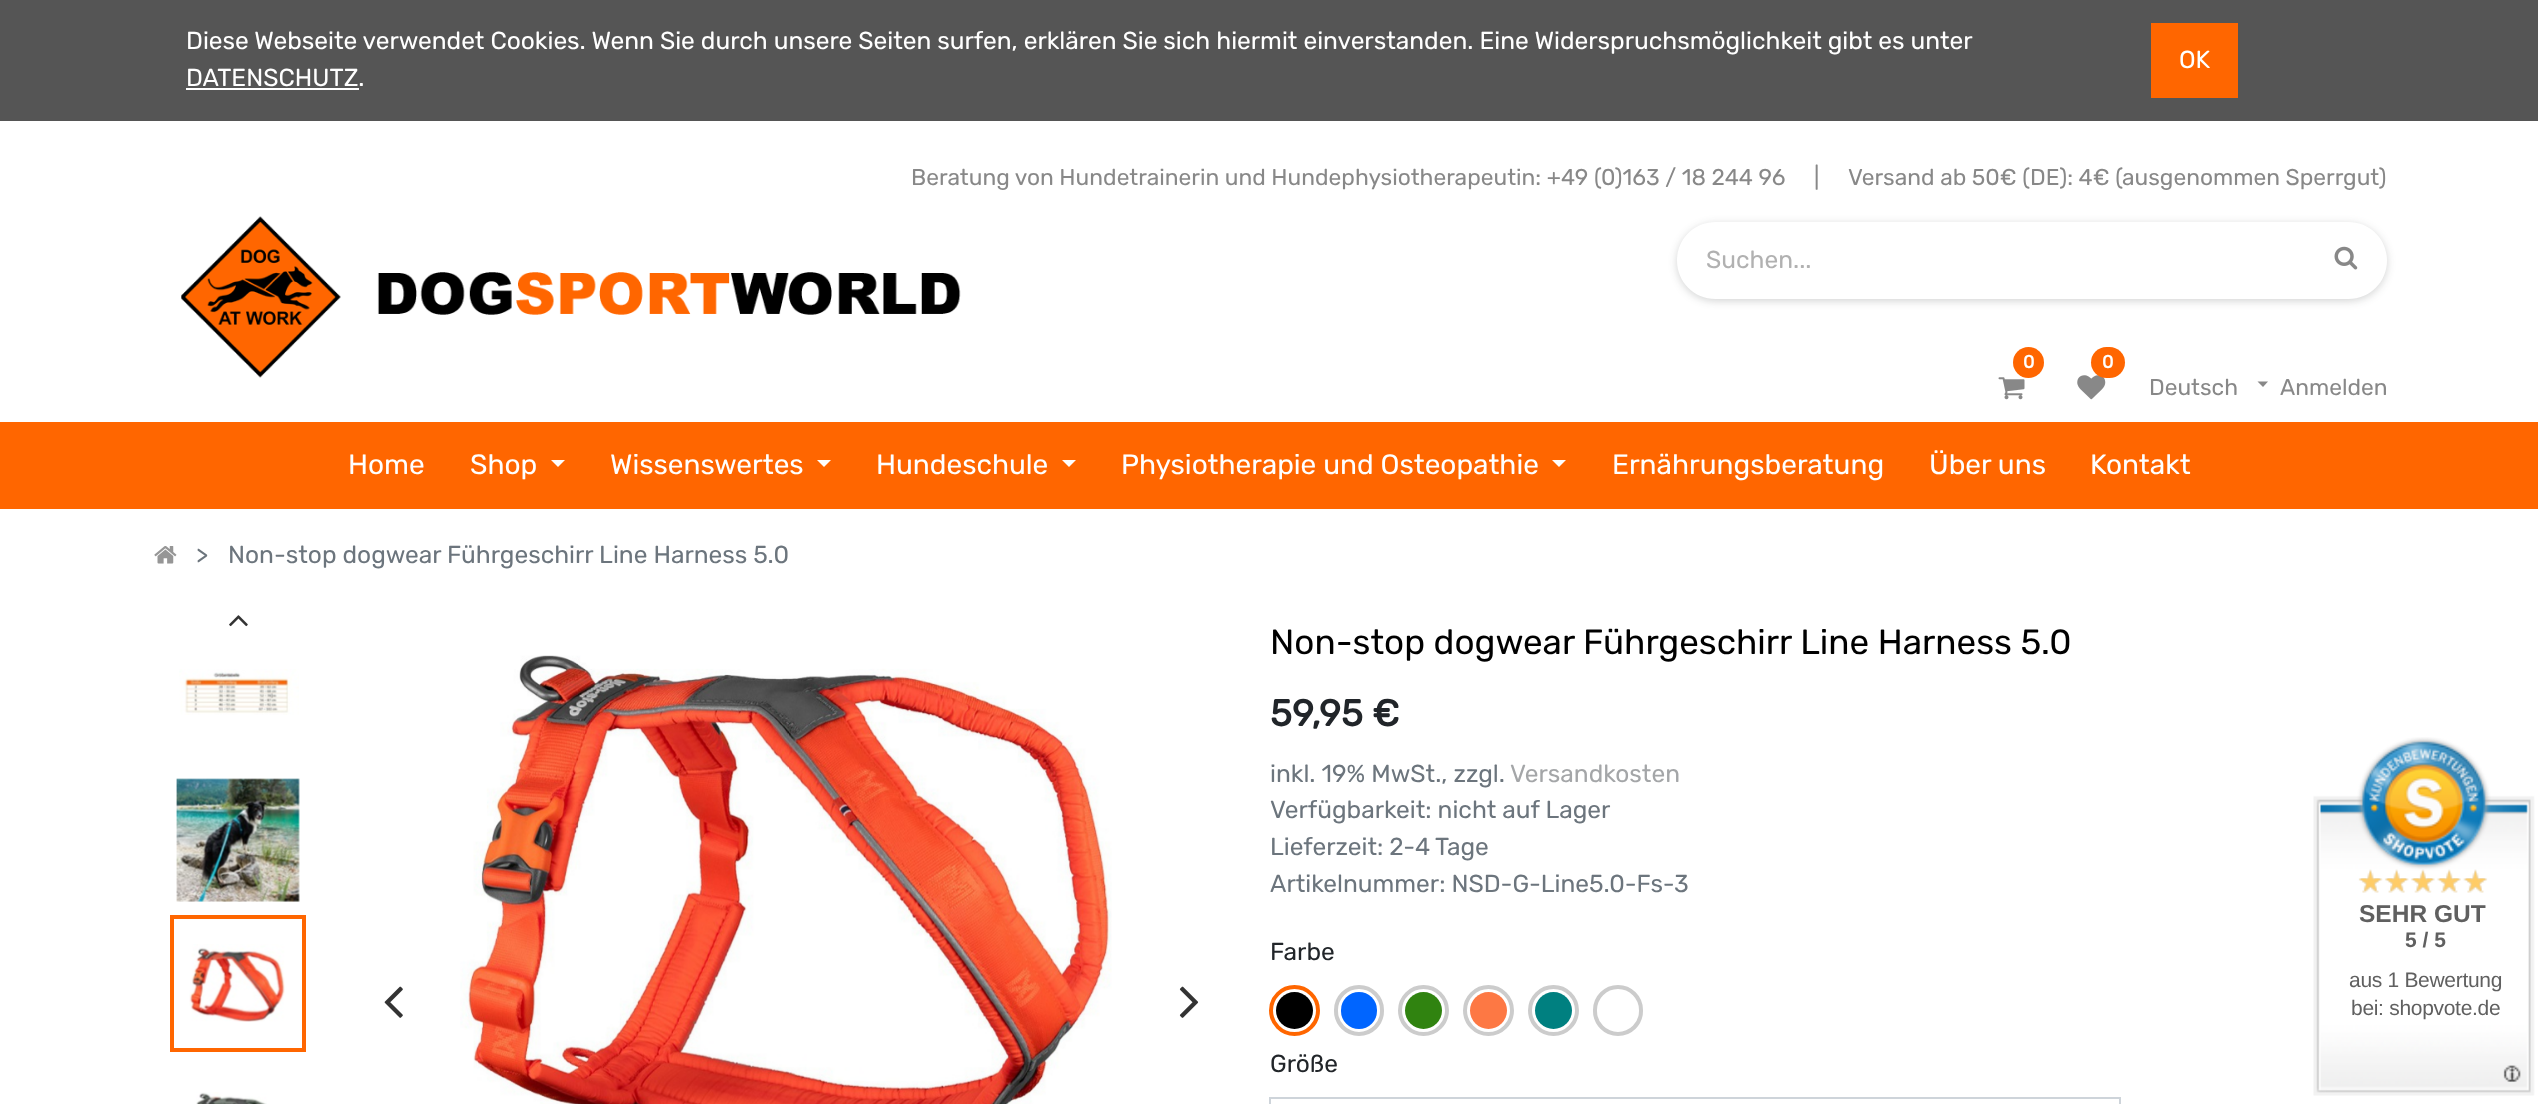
<svg xmlns="http://www.w3.org/2000/svg" width="2538" height="1104" viewBox="0 0 2538 1104">
  <style>
    .t1 { font: 300 24.5px Rubik; fill: #fff; }
    .t2 { font: 300 22.75px Rubik; fill: #888; }
    .t3 { font: 300 24.5px Rubik; fill: #b1b1b1; }
    .t4 { font: bold 18px Rubik; fill: #fff; }
    .t5 { font: 300 28px Rubik; fill: #fff; }
    .t6 { font: 300 24.5px Rubik; fill: #6c757d; }
    .t7 { font: 300 35px Rubik; fill: #000; }
    .t8 { font: bold 37px Rubik; fill: #212529; }
    .t9 { font: 300 24.5px Rubik; fill: #a4a6a8; }
    .t10 { font: 300 24.5px Rubik; fill: #212529; }
    .t11 { font: bold 24.5px Liberation Sans; fill: #606060; }
    .t12 { font: bold 21px Liberation Sans; fill: #606060; }
    .t13 { font: 21px Liberation Sans; letter-spacing: -0.3px; fill: #606060; }
  </style>
  <defs>
    <clipPath id="clip1"><path d="M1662 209H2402V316H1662ZM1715.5 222H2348.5C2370 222 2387 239 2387 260.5C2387 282 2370 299 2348.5 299H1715.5C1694 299 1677 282 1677 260.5C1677 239 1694 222 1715.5 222Z" clip-rule="evenodd"/></clipPath>
  </defs>
  <rect width="100%" height="100%" fill="#fff"/>
  <rect x="0" y="0" width="2538" height="121" fill="#555"/>
  <text x="186" y="49" class="t1">Diese Webseite verwendet Cookies. Wenn Sie durch unsere Seiten surfen, erklären Sie sich hiermit einverstanden. Eine Widerspruchsmöglichkeit gibt es unter</text>
  <text x="186" y="86" class="t1">DATENSCHUTZ.</text>
  <rect x="186" y="88" width="173" height="2" fill="#fff"/>
  <rect x="2151" y="23" width="87" height="75" fill="#f60"/>
  <text x="2179" y="68" class="t1">OK</text>
  <text x="911" y="185" class="t2">Beratung von Hundetrainerin und Hundephysiotherapeutin: +49 (0)163 / 18 244 96</text>
  <text x="1814" y="185" class="t2">|</text>
  <text x="1848" y="185" class="t2">Versand ab 50€ (DE): 4€ (ausgenommen Sperrgut)</text>
  <image x="181" y="216" width="780" height="162" href="images/1.png"/>
  <g clip-path="url(#clip1)">
    <rect x="1677" y="224" width="710" height="77" rx="38.5" fill="#20212433" filter="blur(4.5px)"/>
  </g>
  <text x="1706" y="268" class="t3">Suchen...</text>
  <image x="2334" y="246" width="24" height="24" href="images/2.png"/>
  <image x="1998" y="377" width="27" height="23" href="images/3.png"/>
  <circle cx="2028.5" cy="362.5" r="15.5" fill="#f60"/>
  <text x="2023" y="368" class="t4">0</text>
  <image x="2077" y="375" width="29" height="25" href="images/4.png"/>
  <rect x="2091" y="347" width="34" height="31" rx="15.5" fill="#f60"/>
  <text x="2102" y="368" class="t4">0</text>
  <text x="2149" y="395" class="t2">Deutsch</text>
  <path d="M2257.5 381.5H2268L2263 387Z" fill="#888"/>
  <text x="2280" y="395" class="t2">Anmelden</text>
  <rect x="0" y="422" width="2538" height="87" fill="#f60"/>
  <text x="348" y="474" class="t5">Home</text>
  <text x="470" y="474" class="t5">Shop</text>
  <path d="M551 460H565L558 467Z" fill="#fff"/>
  <text x="610" y="474" class="t5">Wissenswertes</text>
  <path d="M817 460H831L824 467Z" fill="#fff"/>
  <text x="876" y="474" class="t5">Hundeschule</text>
  <path d="M1062 460H1076L1069 467Z" fill="#fff"/>
  <text x="1121" y="474" class="t5">Physiotherapie und Osteopathie</text>
  <path d="M1552 460H1566L1559 467Z" fill="#fff"/>
  <text x="1612" y="474" class="t5">Ernährungsberatung</text>
  <text x="1929" y="474" class="t5">Über uns</text>
  <text x="2090" y="474" class="t5">Kontakt</text>
  <image x="154" y="546" width="23" height="18" href="images/5.png"/>
  <text x="196" y="563" class="t6">&gt;</text>
  <text x="228" y="563" class="t6">Non-stop dogwear Führgeschirr Line Harness 5.0</text>
  <image x="229" y="615" width="19" height="12" href="images/6.png"/>
  <image x="179" y="669" width="120" height="46" href="images/7.png"/>
  <image x="176" y="778" width="124" height="124" href="images/8.png"/>
  <rect x="172" y="917" width="132" height="133" fill="none" stroke="#f60" stroke-width="4"/>
  <image x="189" y="944" width="96" height="78" href="images/9.png"/>
  <image x="196" y="1092" width="71" height="12" href="images/10.png"/>
  <image x="460" y="655" width="652" height="449" href="images/11.png"/>
  <image x="384" y="986" width="19" height="32" href="images/12.png"/>
  <image x="1179" y="986" width="20" height="32" href="images/13.png"/>
  <text x="1270" y="654" class="t7">Non-stop dogwear Führgeschirr Line Harness 5.0</text>
  <text x="1270" y="726" class="t8">59,95 €</text>
  <text x="1270" y="782" class="t6">inkl. 19% MwSt., zzgl.</text>
  <text x="1510" y="782" class="t9">Versandkosten</text>
  <text x="1270" y="818" class="t6">Verfügbarkeit: nicht auf Lager</text>
  <text x="1270" y="855" class="t6">Lieferzeit: 2-4</text>
  <text x="1435" y="855" class="t6">Tage</text>
  <text x="1270" y="892" class="t6">Artikelnummer: NSD-G-Line5.0-Fs-3</text>
  <text x="1270" y="960" class="t10">Farbe</text>
  <circle cx="1294.5" cy="1010.5" r="23.5" fill="none" stroke="#f60" stroke-width="4"/>
  <circle cx="1294.5" cy="1010.5" r="18.5" fill="#000"/>
  <rect x="1336" y="987" width="46" height="47" rx="23" fill="none" stroke="#ccc" stroke-width="4"/>
  <rect x="1341" y="992" width="36" height="37" rx="18" fill="#0065ff"/>
  <circle cx="1423.5" cy="1010.5" r="23.5" fill="none" stroke="#ccc" stroke-width="4"/>
  <circle cx="1423.5" cy="1010.5" r="18.5" fill="#308310"/>
  <circle cx="1488.5" cy="1010.5" r="23.5" fill="none" stroke="#ccc" stroke-width="4"/>
  <circle cx="1488.5" cy="1010.5" r="18.5" fill="#fd7844"/>
  <circle cx="1553.5" cy="1010.5" r="23.5" fill="none" stroke="#ccc" stroke-width="4"/>
  <circle cx="1553.5" cy="1010.5" r="18.5" fill="#008080"/>
  <rect x="1595" y="987" width="46" height="47" rx="23" fill="none" stroke="#ccc" stroke-width="4"/>
  <text x="1270" y="1072" class="t10">Größe</text>
  <rect x="1270" y="1098" width="850" height="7" fill="none" stroke="#ced4da" stroke-width="2"/>
  <image x="2313" y="737" width="222" height="359" href="images/14.png"/>
  <image x="2359" y="869" width="128" height="24" href="images/15.png"/>
  <text x="2359" y="922" class="t11">SEHR GUT</text>
  <text x="2405" y="947" class="t12">5 / 5</text>
  <text x="2349" y="987" class="t13">aus 1 Bewertung</text>
  <text x="2351" y="1015" class="t13">bei: shopvote.de</text>
</svg>
